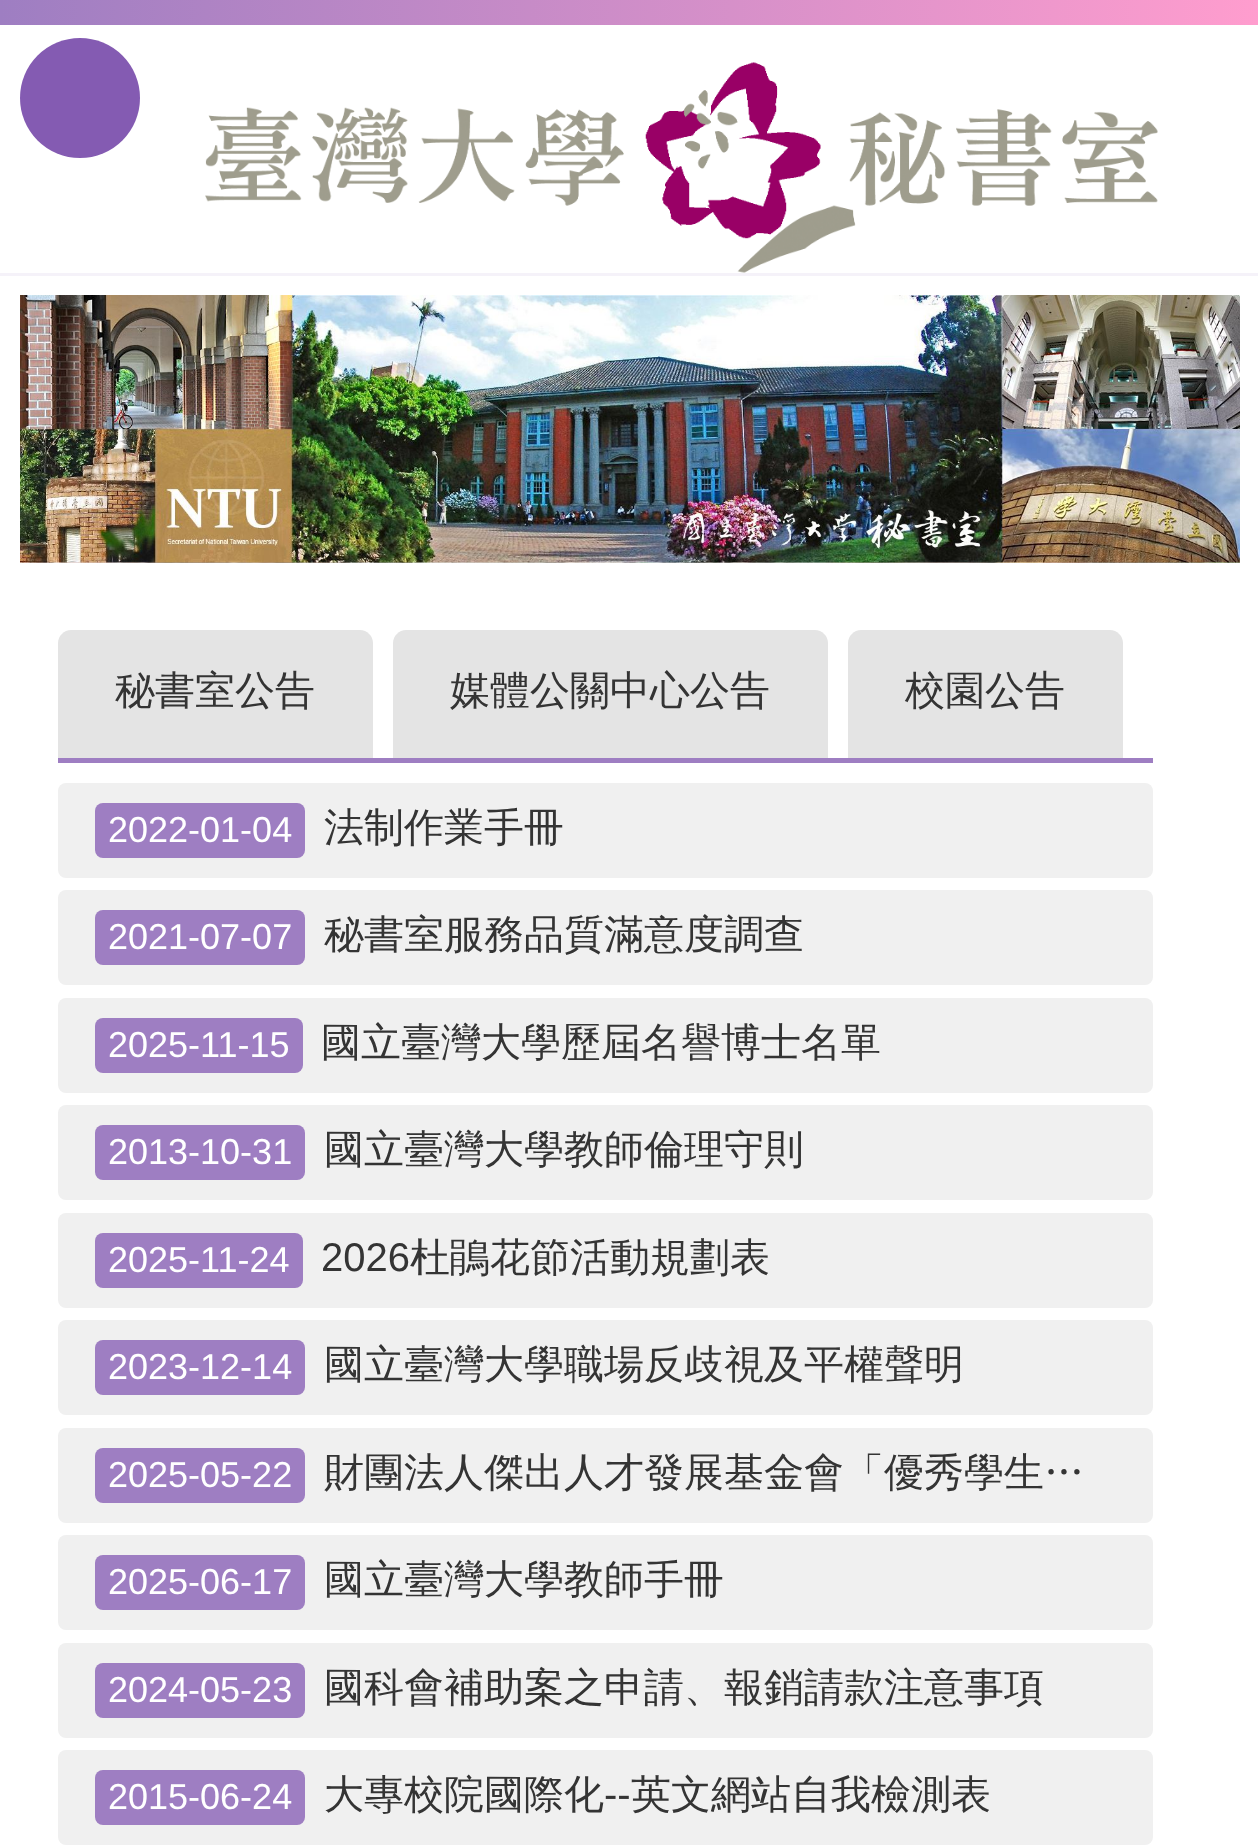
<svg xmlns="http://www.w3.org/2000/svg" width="1258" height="1848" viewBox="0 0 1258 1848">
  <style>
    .t1 { font: 500 40px WenQuanYi Zen Hei; fill: #343434; }
    .t2 { font: 36px Liberation Sans; fill: #fff; }
    .t3 { font: 40px Liberation Sans; fill: #343434; }
  </style>
  <defs>
    <linearGradient id="g1" gradientUnits="userSpaceOnUse" x1="0" y1="13" x2="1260" y2="12"><stop offset="0" stop-color="#9e7ec2"/><stop offset="1" stop-color="#ff9dce"/></linearGradient>
  </defs>
  <rect width="100%" height="100%" fill="#fff"/>
  <circle cx="80" cy="98" r="60" fill="#845bb2"/>
  <rect x="0" y="273" width="1258" height="3" fill="#f5f2f9"/>
  <rect x="0" y="0" width="1258" height="25" fill="url(#g1)"/>
  <image x="205" y="62" width="953" height="211" href="images/1.png"/>
  <image x="20" y="562" width="1220" height="1" href="images/2.png"/>
  <image x="20" y="295" width="1220" height="268" href="images/3.png"/>
  <rect x="58" y="758" width="1095" height="5" fill="#9e7ec2"/>
  <path d="M71 630H360C367 630 373 636 373 643V758H58V643C58 636 64 630 71 630Z" fill="#e4e4e4"/>
  <text x="115" y="704" class="t1">秘書室公告</text>
  <path d="M406 630H815C822 630 828 636 828 643V758H393V643C393 636 399 630 406 630Z" fill="#e4e4e4"/>
  <text x="450" y="704" class="t1">媒體公關中心公告</text>
  <path d="M861 630H1110C1117 630 1123 636 1123 643V758H848V643C848 636 854 630 861 630Z" fill="#e4e4e4"/>
  <text x="905" y="704" class="t1">校園公告</text>
  <rect x="58" y="783" width="1095" height="95" rx="8" fill="#f0f0f0"/>
  <rect x="95" y="803" width="210" height="55" rx="8" fill="#9e7ec2"/>
  <text x="108" y="842" class="t2">2022-01-04</text>
  <text x="324" y="841" class="t1">法制作業手冊</text>
  <rect x="58" y="890" width="1095" height="95" rx="8" fill="#f0f0f0"/>
  <rect x="95" y="910" width="210" height="55" rx="8" fill="#9e7ec2"/>
  <text x="108" y="949" class="t2">2021-07-07</text>
  <text x="324" y="948" class="t1">秘書室服務品質滿意度調查</text>
  <rect x="58" y="998" width="1095" height="95" rx="8" fill="#f0f0f0"/>
  <rect x="95" y="1018" width="208" height="55" rx="8" fill="#9e7ec2"/>
  <text x="108" y="1057" class="t2">2025-11-15</text>
  <text x="321" y="1056" class="t1">國立臺灣大學歷屆名譽博士名單</text>
  <rect x="58" y="1105" width="1095" height="95" rx="8" fill="#f0f0f0"/>
  <rect x="95" y="1125" width="210" height="55" rx="8" fill="#9e7ec2"/>
  <text x="108" y="1164" class="t2">2013-10-31</text>
  <text x="324" y="1163" class="t1">國立臺灣大學教師倫理守則</text>
  <rect x="58" y="1213" width="1095" height="95" rx="8" fill="#f0f0f0"/>
  <rect x="95" y="1233" width="208" height="55" rx="8" fill="#9e7ec2"/>
  <text x="108" y="1272" class="t2">2025-11-24</text>
  <text x="321" y="1271" class="t3">2026</text>
  <text x="410" y="1271" class="t1">杜鵑花節活動規劃表</text>
  <rect x="58" y="1320" width="1095" height="95" rx="8" fill="#f0f0f0"/>
  <rect x="95" y="1340" width="210" height="55" rx="8" fill="#9e7ec2"/>
  <text x="108" y="1379" class="t2">2023-12-14</text>
  <text x="324" y="1378" class="t1">國立臺灣大學職場反歧視及平權聲明</text>
  <rect x="58" y="1428" width="1095" height="95" rx="8" fill="#f0f0f0"/>
  <rect x="95" y="1448" width="210" height="55" rx="8" fill="#9e7ec2"/>
  <text x="108" y="1487" class="t2">2025-05-22</text>
  <text x="324" y="1486" class="t1">財團法人傑出人才發展基金會「優秀學生…</text>
  <rect x="58" y="1535" width="1095" height="95" rx="8" fill="#f0f0f0"/>
  <rect x="95" y="1555" width="210" height="55" rx="8" fill="#9e7ec2"/>
  <text x="108" y="1594" class="t2">2025-06-17</text>
  <text x="324" y="1593" class="t1">國立臺灣大學教師手冊</text>
  <rect x="58" y="1643" width="1095" height="95" rx="8" fill="#f0f0f0"/>
  <rect x="95" y="1663" width="210" height="55" rx="8" fill="#9e7ec2"/>
  <text x="108" y="1702" class="t2">2024-05-23</text>
  <text x="324" y="1701" class="t1">國科會補助案之申請、報銷請款注意事項</text>
  <rect x="58" y="1750" width="1095" height="95" rx="8" fill="#f0f0f0"/>
  <rect x="95" y="1770" width="210" height="55" rx="8" fill="#9e7ec2"/>
  <text x="108" y="1809" class="t2">2015-06-24</text>
  <text x="324" y="1808" class="t1">大專校院國際化</text>
  <text x="604" y="1808" class="t3">--</text>
  <text x="631" y="1808" class="t1">英文網站自我檢測表</text>
</svg>
